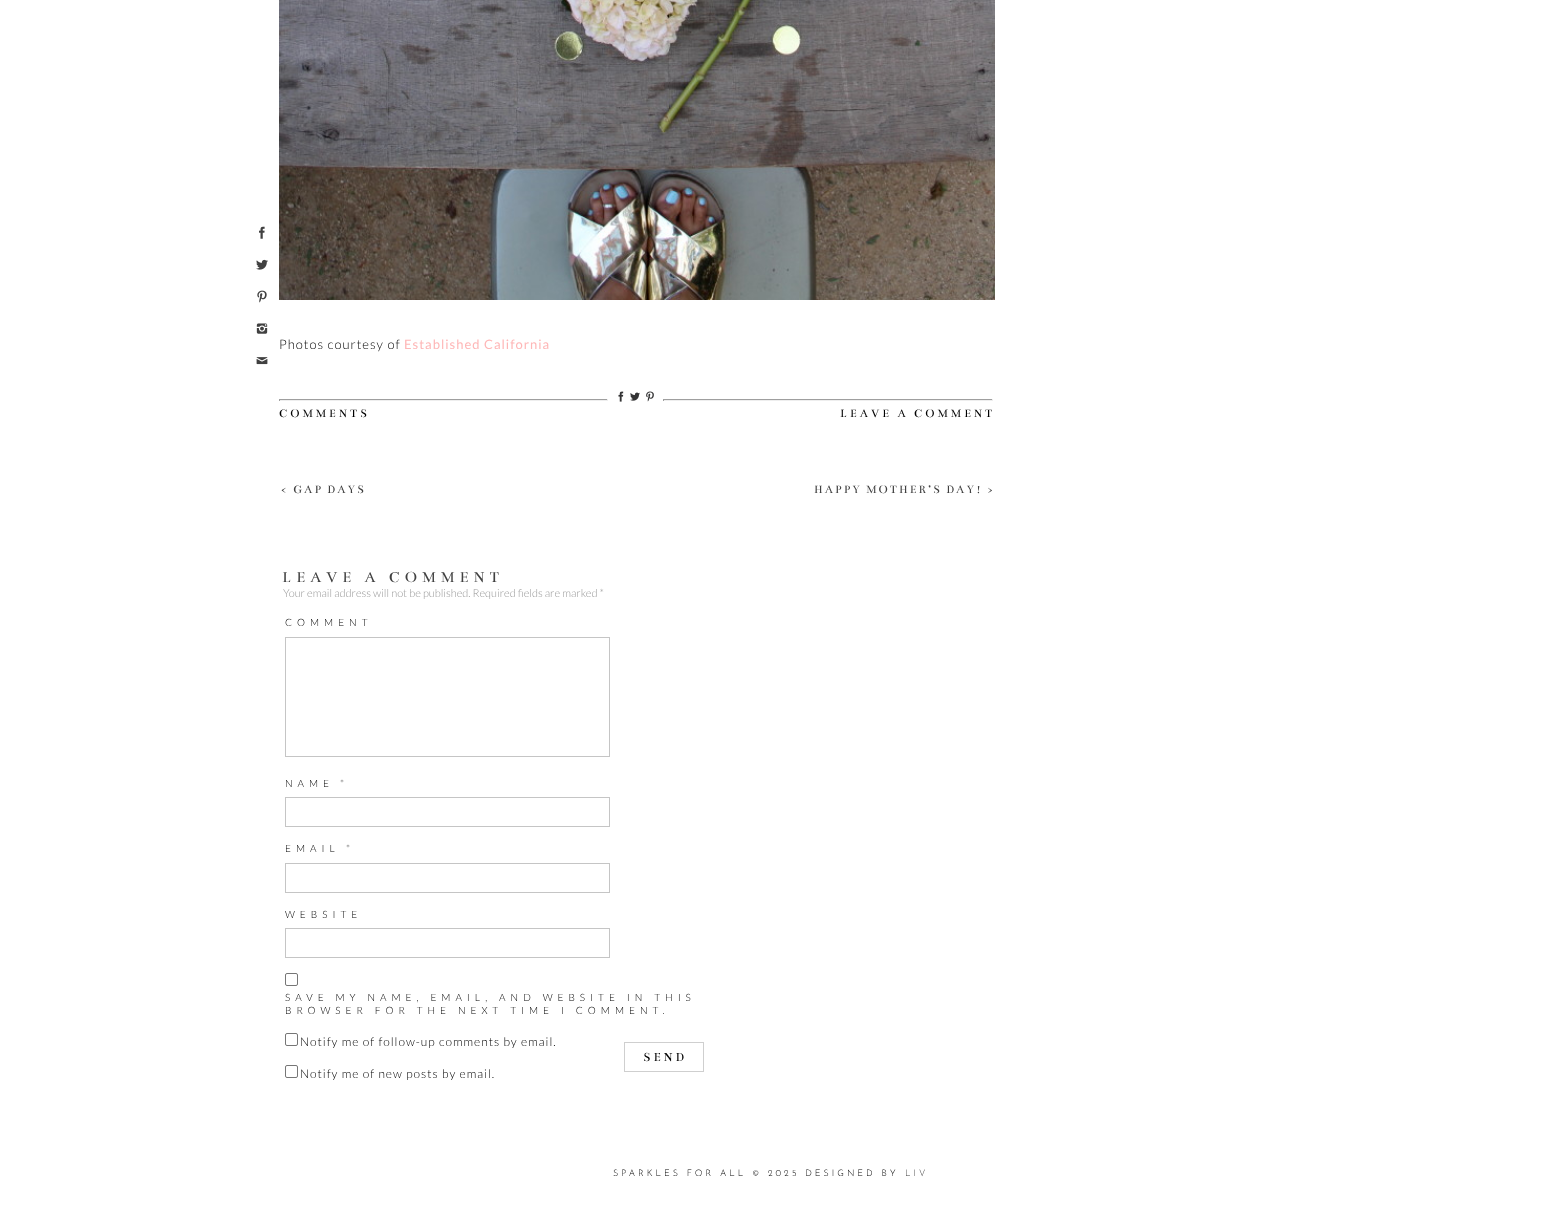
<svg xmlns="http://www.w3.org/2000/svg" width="1541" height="1222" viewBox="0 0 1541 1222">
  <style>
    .t1 { font: 300 13px Lato; letter-spacing: 1px; fill: #000; }
    .t2 { font: 13px Lato; letter-spacing: 1px; fill: #feb7b7; }
    .t3 { font: 12px Bentham; letter-spacing: 3px; fill: #000; }
    .t4 { font: 12px Bentham; letter-spacing: 2px; fill: #404040; }
    .t5 { font: 16px Bentham; letter-spacing: 5px; fill: #404040; }
    .t6 { font: 300 11px Lato; fill: #979797; }
    .t7 { font: 300 10px Lato; letter-spacing: 5px; fill: #000; }
    .t8 { font: 300 10px Lato; letter-spacing: 5px; fill: #404040; }
    .t9 { font: 300 12px Lato; letter-spacing: 1px; fill: #000; }
    .t10 { font: 13px Bentham; letter-spacing: 3px; fill: #000; }
    .t11 { font: 300 9px Josefin Sans; letter-spacing: 3px; fill: #000; }
    .t12 { font: 300 9px Josefin Sans; letter-spacing: 3px; fill: #404040; }
  </style>
  <rect width="100%" height="100%" fill="#fff"/>
  <image x="259" y="226" width="6" height="13" href="images/1.png"/>
  <image x="256" y="259" width="12" height="11" href="images/2.png"/>
  <image x="257" y="290" width="10" height="13" href="images/3.png"/>
  <image x="256" y="323" width="12" height="11" href="images/4.png"/>
  <image x="256" y="357" width="12" height="8" href="images/5.png"/>
  <image x="279" y="0" width="716" height="300" href="images/6.png"/>
  <text x="279" y="349" class="t1">Photos courtesy of</text>
  <text x="404" y="349" class="t2">Established California</text>
  <rect x="279" y="399" width="329" height="1" fill="#9f9f9f"/>
  <rect x="607" y="399" width="1" height="2" fill="#eee"/>
  <rect x="279" y="400" width="329" height="1" fill="#eee"/>
  <rect x="279" y="399" width="1" height="2" fill="#9f9f9f"/>
  <image x="618" y="391" width="6" height="11" href="images/7.png"/>
  <image x="630" y="392" width="10" height="9" href="images/8.png"/>
  <image x="646" y="391" width="8" height="11" href="images/9.png"/>
  <rect x="663" y="399" width="330" height="1" fill="#9f9f9f"/>
  <rect x="992" y="399" width="1" height="2" fill="#eee"/>
  <rect x="663" y="400" width="330" height="1" fill="#eee"/>
  <rect x="663" y="399" width="1" height="2" fill="#9f9f9f"/>
  <text x="279" y="417" class="t3">COMMENTS</text>
  <text x="840" y="417" class="t3">LEAVE A COMMENT</text>
  <text x="281" y="493" class="t4">&lt; GAP DAYS</text>
  <text x="814" y="493" class="t4">HAPPY MOTHER’S DAY! &gt;</text>
  <text x="282" y="582" class="t5">LEAVE A COMMENT</text>
  <text x="283" y="597" class="t6">Your email address will not be published. Required fields are marked *</text>
  <text x="285" y="626" class="t7">COMMENT</text>
  <rect x="285.5" y="637.5" width="324" height="119" fill="none" stroke="#c5c5c5"/>
  <text x="285" y="787" class="t7">NAME</text>
  <text x="340" y="787" class="t8">*</text>
  <rect x="285.5" y="797.5" width="324" height="29" fill="none" stroke="#c5c5c5"/>
  <text x="285" y="852" class="t7">EMAIL</text>
  <text x="346" y="852" class="t8">*</text>
  <rect x="285.5" y="863.5" width="324" height="29" fill="none" stroke="#c5c5c5"/>
  <text x="285" y="918" class="t7">WEBSITE</text>
  <rect x="285.5" y="928.5" width="324" height="29" fill="none" stroke="#c5c5c5"/>
  <rect x="285.5" y="973.5" width="12" height="12" rx="1.5" fill="none" stroke="#767676"/>
  <text x="285" y="1001" class="t7">SAVE MY NAME, EMAIL, AND WEBSITE IN THIS</text>
  <text x="285" y="1014" class="t7">BROWSER FOR THE NEXT TIME I COMMENT.</text>
  <rect x="285.5" y="1033.5" width="12" height="12" rx="1.5" fill="none" stroke="#767676"/>
  <text x="300" y="1046" class="t9">Notify me of follow-up comments by email.</text>
  <rect x="624.5" y="1042.5" width="79" height="29" fill="none" stroke="#cfcfcf"/>
  <text x="643" y="1061" class="t10">SEND</text>
  <rect x="285.5" y="1065.5" width="12" height="12" rx="1.5" fill="none" stroke="#767676"/>
  <text x="300" y="1078" class="t9">Notify me of new posts by email.</text>
  <text x="613" y="1176" class="t11">SPARKLES FOR ALL © 2025 DESIGNED BY</text>
  <text x="905" y="1176" class="t12">LIV</text>
</svg>
